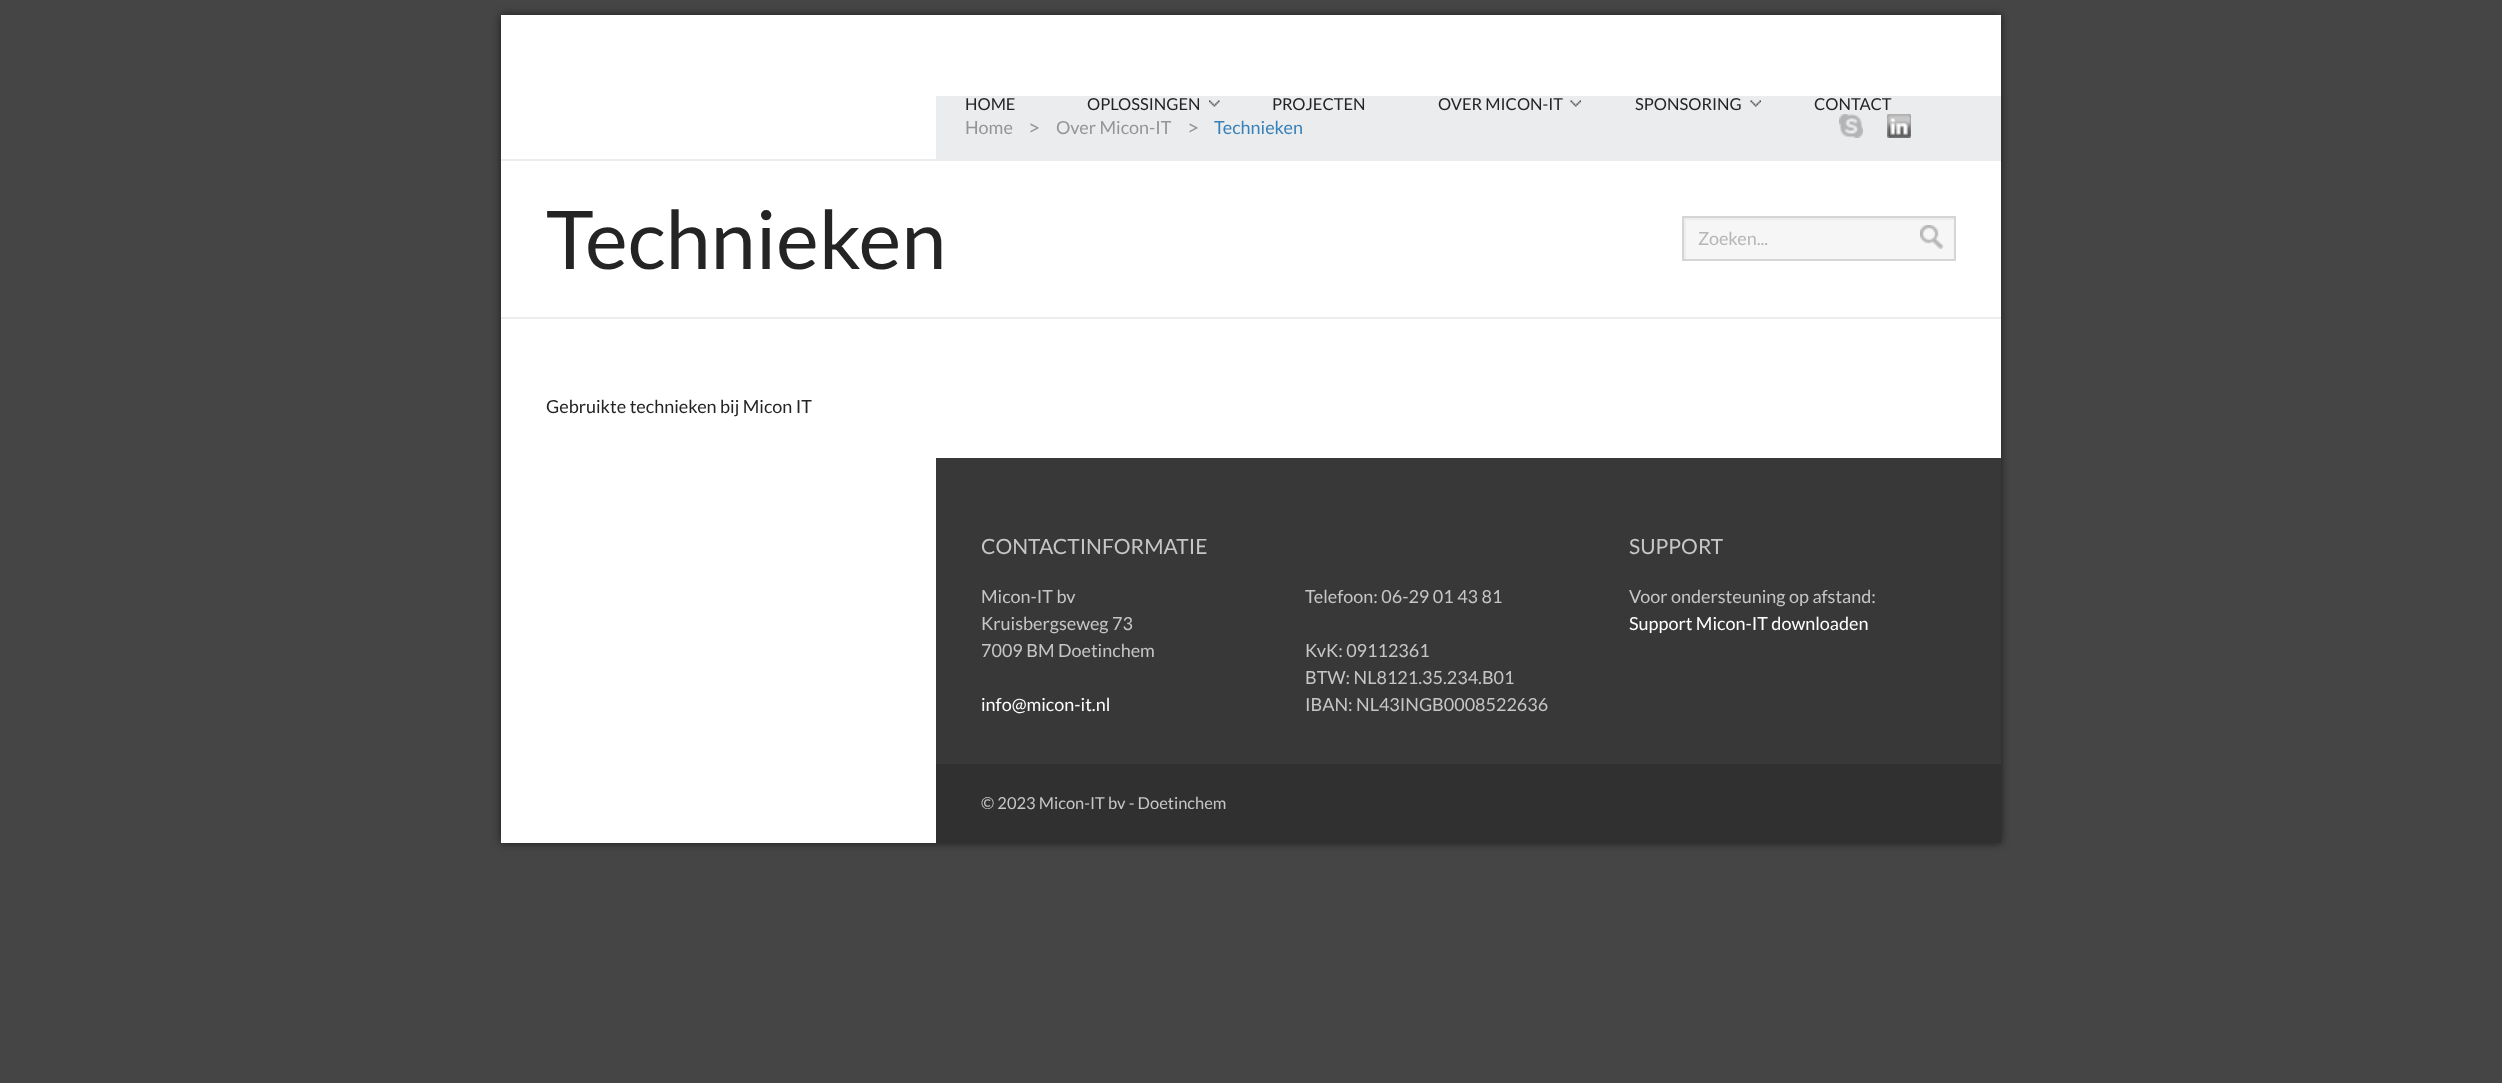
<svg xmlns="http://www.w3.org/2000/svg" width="2502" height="1083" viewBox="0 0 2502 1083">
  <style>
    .t1 { font: 16.5px Lato; fill: #242424; }
    .t2 { font: 18px Lato; fill: #959595; }
    .t3 { font: 21px Lato; fill: #959595; }
    .t4 { font: 18px Lato; fill: #3781b7; }
    .t5 { font: 81px Lato; fill: #242424; }
    .t6 { font: 18px Lato; fill: #b6b6b6; }
    .t7 { font: 18px Lato; fill: #242424; }
    .t8 { font: 21px Lato; fill: #c6c6c6; }
    .t9 { font: 18px Lato; fill: #c6c6c6; }
    .t10 { font: 18px Lato; fill: #fff; }
    .t11 { font: 16.5px Lato; fill: #c6c6c6; }
  </style>
  <defs>
    <clipPath id="clip1"><rect x="1683" y="218" width="272" height="42"/></clipPath>
  </defs>
  <rect width="100%" height="100%" fill="#454545"/>
  <rect x="501" y="15" width="1500" height="828" fill="#00000099" filter="blur(4px)"/>
  <rect x="501" y="15" width="1500" height="828" fill="#fff"/>
  <rect x="936" y="96" width="1065" height="63" fill="#eaecee"/>
  <text x="965" y="110" class="t1">HOME</text>
  <image x="1209" y="100" width="11" height="7" href="images/1.png"/>
  <text x="1087" y="110" class="t1">OPLOSSINGEN</text>
  <text x="1272" y="110" class="t1">PROJECTEN</text>
  <image x="1570" y="100" width="11" height="7" href="images/2.png"/>
  <text x="1438" y="110" class="t1">OVER MICON-IT</text>
  <image x="1750" y="100" width="11" height="7" href="images/2.png"/>
  <text x="1635" y="110" class="t1">SPONSORING</text>
  <text x="1814" y="110" class="t1">CONTACT</text>
  <text x="965" y="134" class="t2">Home</text>
  <text x="1028" y="135" class="t3">&gt;</text>
  <text x="1056" y="134" class="t2">Over Micon-IT</text>
  <text x="1187" y="135" class="t3">&gt;</text>
  <text x="1214" y="134" class="t4">Technieken</text>
  <image x="1839" y="114" width="24" height="24" href="images/3.png"/>
  <image x="1887" y="114" width="24" height="24" href="images/4.png"/>
  <rect x="501" y="159" width="1500" height="2" fill="#eaecee"/>
  <rect x="501" y="317" width="1500" height="2" fill="#eaecee"/>
  <text x="546" y="269" class="t5">Technieken</text>
  <rect x="1686" y="220" width="268" height="39" fill="#f6f6f6"/>
  <g clip-path="url(#clip1)">
    <path d="M1534 69H2103V408H1534ZM1686 220H1958V262H1686Z" fill="#ededed" fill-rule="evenodd"/>
  </g>
  <rect x="1683" y="217" width="272" height="43" fill="none" stroke="#d3d5d7" stroke-width="2"/>
  <text x="1698" y="245" class="t6">Zoeken...</text>
  <image x="1920" y="225" width="24" height="24" href="images/5.png"/>
  <text x="546" y="413" class="t7">Gebruikte technieken bij Micon IT</text>
  <rect x="936" y="458" width="1065" height="306" fill="#383838"/>
  <text x="981" y="554" class="t8">CONTACTINFORMATIE</text>
  <text x="981" y="603" class="t9">Micon-IT bv</text>
  <text x="981" y="630" class="t9">Kruisbergseweg 73</text>
  <text x="981" y="657" class="t9">7009 BM Doetinchem</text>
  <text x="981" y="711" class="t10">info@micon-it.nl</text>
  <text x="1305" y="603" class="t9">Telefoon: 06-29 01 43 81</text>
  <text x="1305" y="657" class="t9">KvK: 09112361</text>
  <text x="1305" y="684" class="t9">BTW: NL8121.35.234.B01</text>
  <text x="1305" y="711" class="t9">IBAN: NL43INGB0008522636</text>
  <text x="1629" y="554" class="t8">SUPPORT</text>
  <text x="1629" y="603" class="t9">Voor ondersteuning op afstand:</text>
  <text x="1629" y="630" class="t10">Support Micon-IT downloaden</text>
  <rect x="936" y="764" width="1065" height="79" fill="#303030"/>
  <text x="981" y="809" class="t11">© 2023 Micon-IT bv - Doetinchem</text>
</svg>
